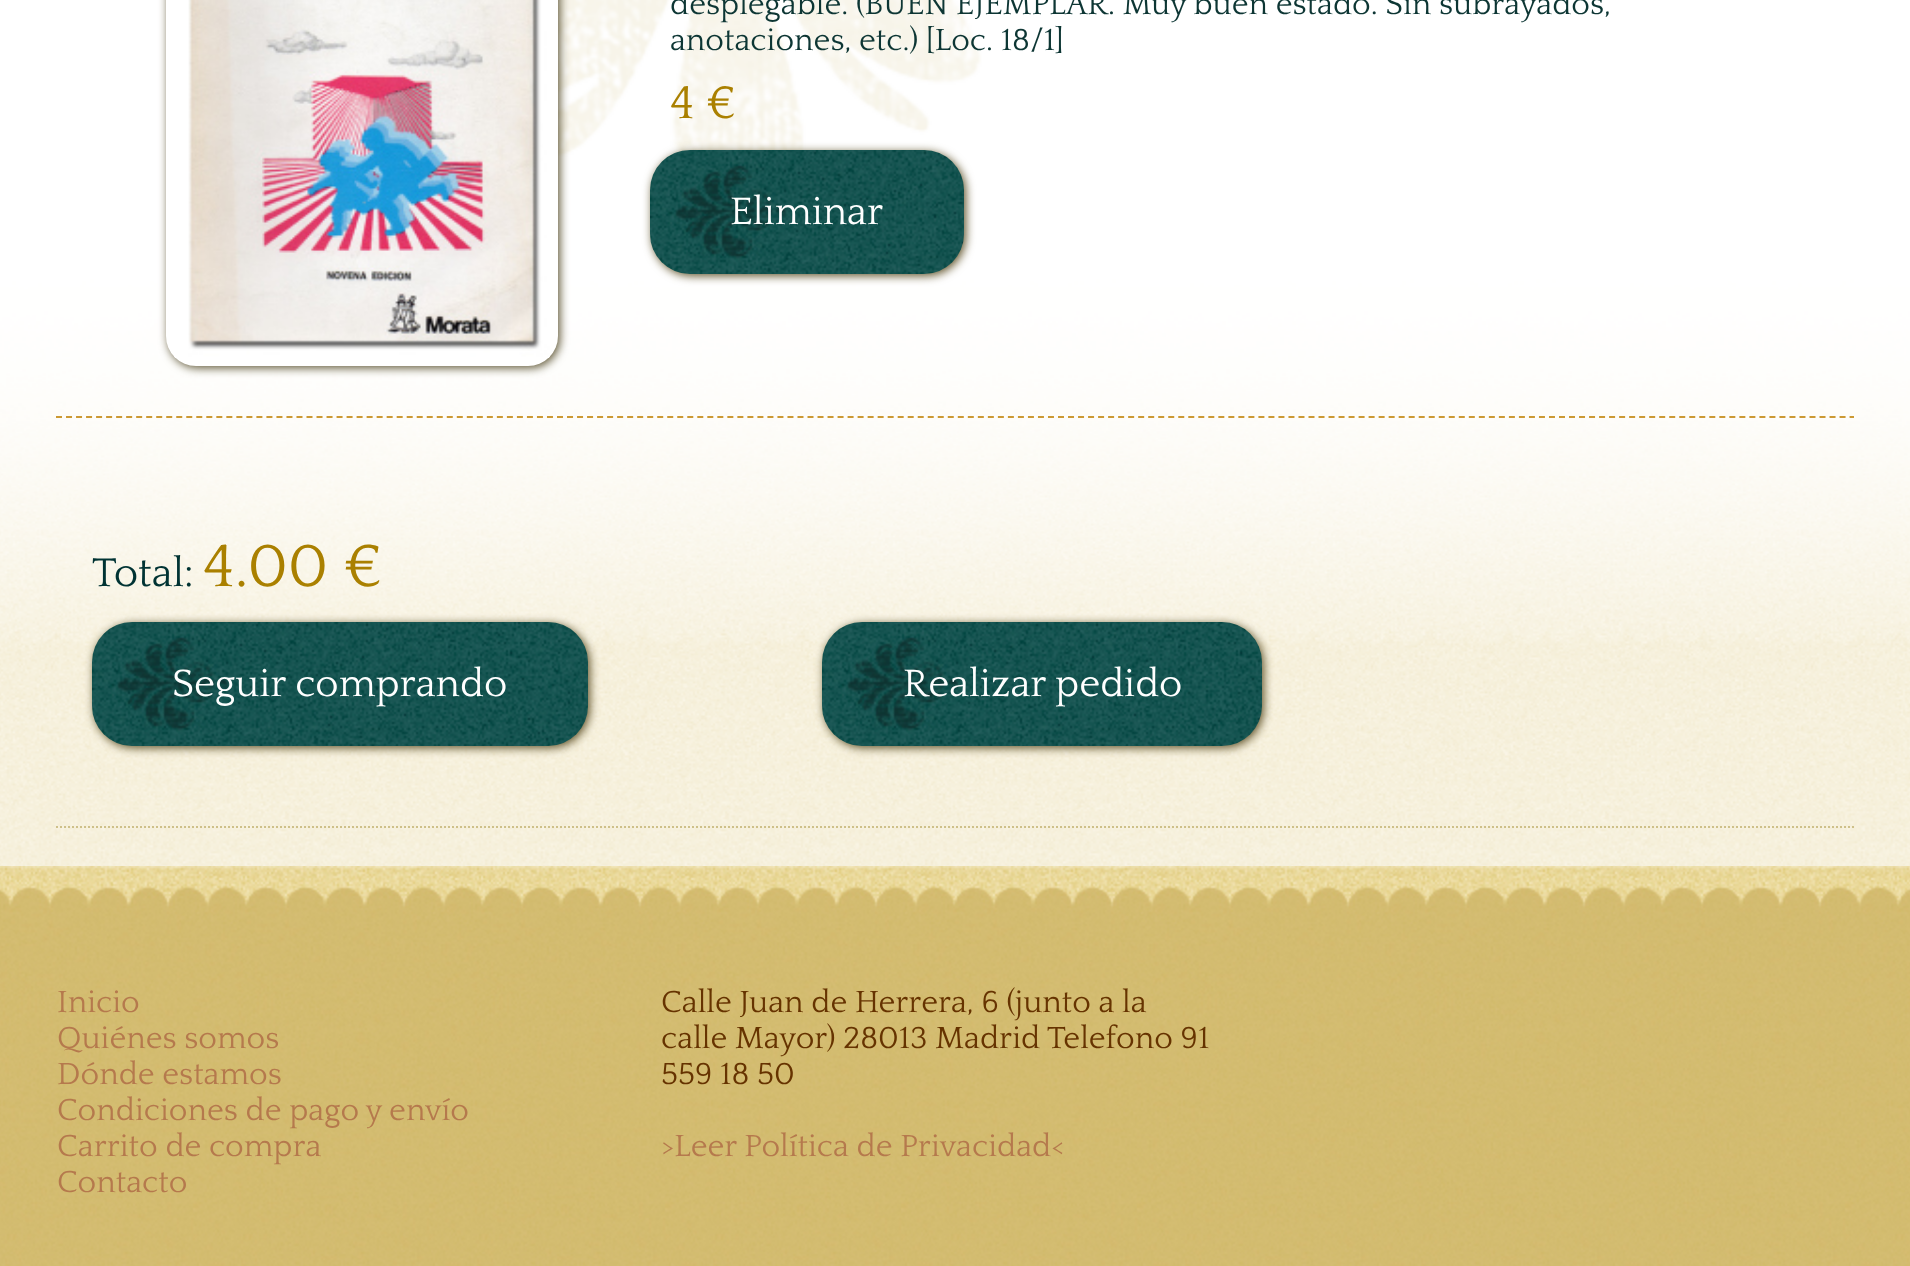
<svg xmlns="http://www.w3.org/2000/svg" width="1910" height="1266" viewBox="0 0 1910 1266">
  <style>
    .t1 { font: 32px Quattrocento; fill: #0d3634; }
    .t2 { font: 48px Quattrocento; fill: #aa8000; }
    .t3 { font: 40px Quattrocento; fill: #fff; }
    .t4 { font: 42px Quattrocento; fill: #033; }
    .t5 { font: 62.5px Quattrocento; fill: #aa8000; }
    .t6 { font: 32px Quattrocento; fill: #b5794d; }
    .t7 { font: 32px Quattrocento; fill: #630; }
  </style>
  <rect width="100%" height="100%" fill="#fff"/>
  <image x="0" y="0" width="1910" height="866" href="images/1.png"/>
  <path d="M56 417H1854" fill="none" stroke="#c93" stroke-width="2" stroke-dasharray="6 4.02"/>
  <rect x="168" y="-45" width="392" height="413" rx="30" fill="#5d5433" filter="blur(5px)"/>
  <rect x="166" y="-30" width="392" height="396" rx="30" fill="#fff"/>
  <image x="174" y="0" width="376" height="358" href="images/2.png"/>
  <text x="670" y="14" class="t1">desplegable. (BUEN EJEMPLAR. Muy buen estado. Sin subrayados,</text>
  <text x="670" y="50" class="t1">anotaciones, etc.) [Loc. 18/1]</text>
  <text x="670" y="118" class="t2">4 €</text>
  <rect x="652" y="152" width="314" height="124" rx="40" fill="#62542b" filter="blur(5px)"/>
  <image x="650" y="150" width="314" height="124" href="images/3.png"/>
  <text x="730" y="224" class="t3">Eliminar</text>
  <path d="M56 827H1854" fill="none" stroke="#cec089" stroke-width="2" stroke-dasharray="2 2"/>
  <text x="92" y="586" class="t4">Total:</text>
  <text x="203" y="586" class="t5">4.00 €</text>
  <rect x="94" y="624" width="496" height="124" rx="40" fill="#62542b" filter="blur(5px)"/>
  <image x="92" y="622" width="496" height="124" href="images/4.png"/>
  <text x="172" y="696" class="t3">Seguir comprando</text>
  <rect x="824" y="624" width="440" height="124" rx="40" fill="#62542b" filter="blur(5px)"/>
  <image x="822" y="622" width="440" height="124" href="images/5.png"/>
  <text x="903" y="696" class="t3">Realizar pedido</text>
  <image x="0" y="866" width="1910" height="400" href="images/6.png"/>
  <text x="57" y="1012" class="t6">Inicio</text>
  <text x="57" y="1048" class="t6">Quiénes somos</text>
  <text x="57" y="1084" class="t6">Dónde estamos</text>
  <text x="57" y="1120" class="t6">Condiciones de pago y envío</text>
  <text x="57" y="1156" class="t6">Carrito de compra</text>
  <text x="57" y="1192" class="t6">Contacto</text>
  <text x="661" y="1012" class="t7">Calle Juan de Herrera, 6 (junto a la</text>
  <text x="661" y="1048" class="t7">calle Mayor) 28013 Madrid Telefono 91</text>
  <text x="661" y="1084" class="t7">559 18 50</text>
  <text x="661" y="1156" class="t6">&gt;Leer Política de Privacidad&lt;</text>
</svg>
